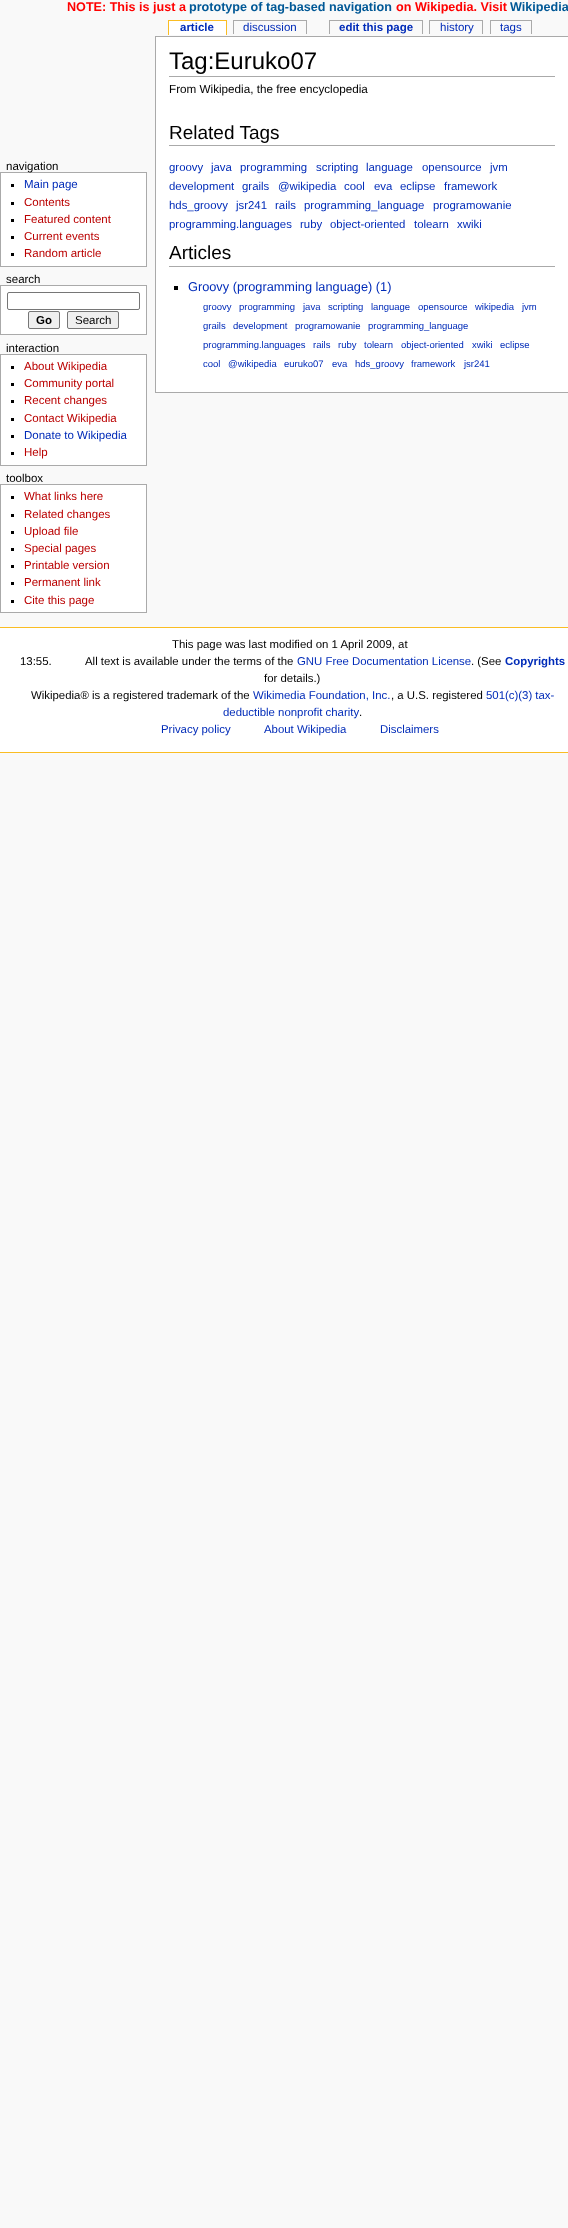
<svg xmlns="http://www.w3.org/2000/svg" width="568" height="2228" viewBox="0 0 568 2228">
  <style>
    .t1 { font: bold 12.6px Liberation Sans; fill: #f00; }
    .t2 { font: bold 12.6px Liberation Sans; fill: #005896; }
    .t3 { font: bold 11.5px Liberation Sans; fill: #002bb8; }
    .t4 { font: 11.5px Liberation Sans; fill: #002bb8; }
    .t5 { font: 11.5px Liberation Sans; fill: #000; }
    .t6 { font: 11.5px Liberation Sans; fill: #ba0000; }
    .t7 { font: bold 11.5px Liberation Sans; fill: #000; }
    .t8 { font: 24px Liberation Sans; fill: #000; }
    .t9 { font: 11.7px Liberation Sans; fill: #000; }
    .t10 { font: 19px Liberation Sans; fill: #000; }
    .t11 { font: 11.4px Liberation Sans; fill: #002bb8; }
    .t12 { font: 12.75px Liberation Sans; fill: #002bb8; }
    .t13 { font: 9.5px Liberation Sans; fill: #002bb8; }
    .t14 { font: 11.4px Liberation Sans; fill: #000; }
    .t15 { font: bold 11.4px Liberation Sans; fill: #002bb8; }
  </style>
  <rect width="100%" height="100%" fill="#f9f9f9"/>
  <text x="67" y="11" class="t1">NOTE: This is just a</text>
  <text x="189" y="11" class="t2">prototype of tag-based navigation</text>
  <text x="396" y="11" class="t1">on Wikipedia. Visit</text>
  <text x="510" y="11" class="t2">Wikipedia</text>
  <rect x="169" y="21" width="57" height="14" fill="#fff"/>
  <text x="180" y="31" class="t3">article</text>
  <rect x="168" y="20" width="59" height="1" fill="#fabd23"/>
  <rect x="226" y="20" width="1" height="15" fill="#fabd23"/>
  <rect x="168" y="20" width="1" height="15" fill="#fabd23"/>
  <text x="243" y="31" class="t4">discussion</text>
  <rect x="233" y="20" width="74" height="1" fill="#aaa"/>
  <rect x="306" y="20" width="1" height="14" fill="#aaa"/>
  <rect x="233" y="20" width="1" height="14" fill="#aaa"/>
  <text x="339" y="31" class="t3">edit this page</text>
  <rect x="329" y="20" width="94" height="1" fill="#aaa"/>
  <rect x="422" y="20" width="1" height="14" fill="#aaa"/>
  <rect x="329" y="20" width="1" height="14" fill="#aaa"/>
  <text x="440" y="31" class="t4">history</text>
  <rect x="429" y="20" width="54" height="1" fill="#aaa"/>
  <rect x="482" y="20" width="1" height="14" fill="#aaa"/>
  <rect x="429" y="20" width="1" height="14" fill="#aaa"/>
  <text x="500" y="31" class="t4">tags</text>
  <rect x="490" y="20" width="42" height="1" fill="#aaa"/>
  <rect x="531" y="20" width="1" height="14" fill="#aaa"/>
  <rect x="490" y="20" width="1" height="14" fill="#aaa"/>
  <rect x="0.5" y="172.5" width="146" height="94" fill="#fff" stroke="#aaa"/>
  <text x="6" y="170" class="t5">navigation</text>
  <rect x="11" y="184" width="3" height="3" fill="#000"/>
  <text x="24" y="188" class="t4">Main page</text>
  <rect x="11" y="202" width="3" height="3" fill="#000"/>
  <text x="24" y="206" class="t6">Contents</text>
  <rect x="11" y="219" width="3" height="3" fill="#000"/>
  <text x="24" y="223" class="t6">Featured content</text>
  <rect x="11" y="236" width="3" height="3" fill="#000"/>
  <text x="24" y="240" class="t6">Current events</text>
  <rect x="11" y="253" width="3" height="3" fill="#000"/>
  <text x="24" y="257" class="t6">Random article</text>
  <text x="6" y="283" class="t5">search</text>
  <rect x="0.5" y="285.5" width="146" height="49" fill="#fff" stroke="#aaa"/>
  <rect x="7.5" y="292.5" width="132" height="17" rx="1.5" fill="none" stroke="#767676"/>
  <rect x="28.5" y="311.5" width="31" height="17" rx="1.5" fill="#efefef" stroke="#767676"/>
  <text x="36" y="324" class="t7">Go</text>
  <rect x="67.5" y="311.5" width="51" height="17" rx="1.5" fill="#efefef" stroke="#767676"/>
  <text x="75" y="324" class="t5">Search</text>
  <text x="6" y="352" class="t5">interaction</text>
  <rect x="0.5" y="354.5" width="146" height="111" fill="#fff" stroke="#aaa"/>
  <rect x="11" y="366" width="3" height="3" fill="#000"/>
  <text x="24" y="370" class="t6">About Wikipedia</text>
  <rect x="11" y="383" width="3" height="3" fill="#000"/>
  <text x="24" y="387" class="t6">Community portal</text>
  <rect x="11" y="400" width="3" height="3" fill="#000"/>
  <text x="24" y="404" class="t6">Recent changes</text>
  <rect x="11" y="418" width="3" height="3" fill="#000"/>
  <text x="24" y="422" class="t6">Contact Wikipedia</text>
  <rect x="11" y="435" width="3" height="3" fill="#000"/>
  <text x="24" y="439" class="t4">Donate to Wikipedia</text>
  <rect x="11" y="452" width="3" height="3" fill="#000"/>
  <text x="24" y="456" class="t6">Help</text>
  <text x="6" y="482" class="t5">toolbox</text>
  <rect x="0.5" y="484.5" width="146" height="128" fill="#fff" stroke="#aaa"/>
  <rect x="11" y="496" width="3" height="3" fill="#000"/>
  <text x="24" y="500" class="t6">What links here</text>
  <rect x="11" y="514" width="3" height="3" fill="#000"/>
  <text x="24" y="518" class="t6">Related changes</text>
  <rect x="11" y="531" width="3" height="3" fill="#000"/>
  <text x="24" y="535" class="t6">Upload file</text>
  <rect x="11" y="548" width="3" height="3" fill="#000"/>
  <text x="24" y="552" class="t6">Special pages</text>
  <rect x="11" y="565" width="3" height="3" fill="#000"/>
  <text x="24" y="569" class="t6">Printable version</text>
  <rect x="11" y="582" width="3" height="3" fill="#000"/>
  <text x="24" y="586" class="t6">Permanent link</text>
  <rect x="11" y="600" width="3" height="3" fill="#000"/>
  <text x="24" y="604" class="t6">Cite this page</text>
  <rect x="156" y="37" width="412" height="355" fill="#fff"/>
  <rect x="155" y="36" width="413" height="1" fill="#aaa"/>
  <rect x="155" y="392" width="413" height="1" fill="#aaa"/>
  <rect x="155" y="36" width="1" height="357" fill="#aaa"/>
  <rect x="169" y="76" width="386" height="1" fill="#aaa"/>
  <text x="169" y="69" class="t8">Tag:Euruko07</text>
  <text x="169" y="93" class="t9">From Wikipedia, the free encyclopedia</text>
  <rect x="169" y="145" width="386" height="1" fill="#aaa"/>
  <text x="169" y="139" class="t10">Related Tags</text>
  <text x="169" y="171" class="t11">groovy</text>
  <text x="211" y="171" class="t11">java</text>
  <text x="240" y="171" class="t11">programming</text>
  <text x="316" y="171" class="t11">scripting</text>
  <text x="366" y="171" class="t11">language</text>
  <text x="422" y="171" class="t11">opensource</text>
  <text x="490" y="171" class="t11">jvm</text>
  <text x="169" y="190" class="t11">development</text>
  <text x="242" y="190" class="t11">grails</text>
  <text x="278" y="190" class="t11">@wikipedia</text>
  <text x="344" y="190" class="t11">cool</text>
  <text x="374" y="190" class="t11">eva</text>
  <text x="400" y="190" class="t11">eclipse</text>
  <text x="444" y="190" class="t11">framework</text>
  <text x="169" y="209" class="t11">hds_groovy</text>
  <text x="236" y="209" class="t11">jsr241</text>
  <text x="275" y="209" class="t11">rails</text>
  <text x="304" y="209" class="t11">programming_language</text>
  <text x="433" y="209" class="t11">programowanie</text>
  <text x="169" y="228" class="t11">programming.languages</text>
  <text x="300" y="228" class="t11">ruby</text>
  <text x="330" y="228" class="t11">object-oriented</text>
  <text x="414" y="228" class="t11">tolearn</text>
  <text x="457" y="228" class="t11">xwiki</text>
  <rect x="169" y="266" width="386" height="1" fill="#aaa"/>
  <text x="169" y="259" class="t10">Articles</text>
  <rect x="174" y="286" width="4" height="4" fill="#000"/>
  <text x="188" y="291" class="t12">Groovy (programming language) (1)</text>
  <text x="203" y="310" class="t13">groovy</text>
  <text x="239" y="310" class="t13">programming</text>
  <text x="303" y="310" class="t13">java</text>
  <text x="328" y="310" class="t13">scripting</text>
  <text x="371" y="310" class="t13">language</text>
  <text x="418" y="310" class="t13">opensource</text>
  <text x="475" y="310" class="t13">wikipedia</text>
  <text x="522" y="310" class="t13">jvm</text>
  <text x="203" y="329" class="t13">grails</text>
  <text x="233" y="329" class="t13">development</text>
  <text x="295" y="329" class="t13">programowanie</text>
  <text x="368" y="329" class="t13">programming_language</text>
  <text x="203" y="348" class="t13">programming.languages</text>
  <text x="313" y="348" class="t13">rails</text>
  <text x="338" y="348" class="t13">ruby</text>
  <text x="364" y="348" class="t13">tolearn</text>
  <text x="401" y="348" class="t13">object-oriented</text>
  <text x="472" y="348" class="t13">xwiki</text>
  <text x="500" y="348" class="t13">eclipse</text>
  <text x="203" y="367" class="t13">cool</text>
  <text x="228" y="367" class="t13">@wikipedia</text>
  <text x="284" y="367" class="t13">euruko07</text>
  <text x="332" y="367" class="t13">eva</text>
  <text x="355" y="367" class="t13">hds_groovy</text>
  <text x="411" y="367" class="t13">framework</text>
  <text x="464" y="367" class="t13">jsr241</text>
  <rect x="0" y="628" width="568" height="124" fill="#fff"/>
  <rect x="0" y="627" width="568" height="1" fill="#fabd23"/>
  <rect x="0" y="752" width="568" height="1" fill="#fabd23"/>
  <text x="172" y="648" class="t14">This page was last modified on 1 April 2009, at</text>
  <text x="20" y="665" class="t14">13:55.</text>
  <text x="85" y="665" class="t14">All text is available under the terms of the</text>
  <text x="297" y="665" class="t11">GNU Free Documentation License</text>
  <text x="471" y="665" class="t14">. (See</text>
  <text x="505" y="665" class="t15">Copyrights</text>
  <text x="264" y="682" class="t14">for details.)</text>
  <text x="31" y="699" class="t14">Wikipedia® is a registered trademark of the</text>
  <text x="253" y="699" class="t11">Wikimedia Foundation, Inc.</text>
  <text x="391" y="699" class="t14">, a U.S. registered</text>
  <text x="486" y="699" class="t11">501(c)(3) tax-</text>
  <text x="223" y="716" class="t11">deductible nonprofit charity</text>
  <text x="359" y="716" class="t14">.</text>
  <text x="161" y="733" class="t11">Privacy policy</text>
  <text x="264" y="733" class="t11">About Wikipedia</text>
  <text x="380" y="733" class="t11">Disclaimers</text>
</svg>
